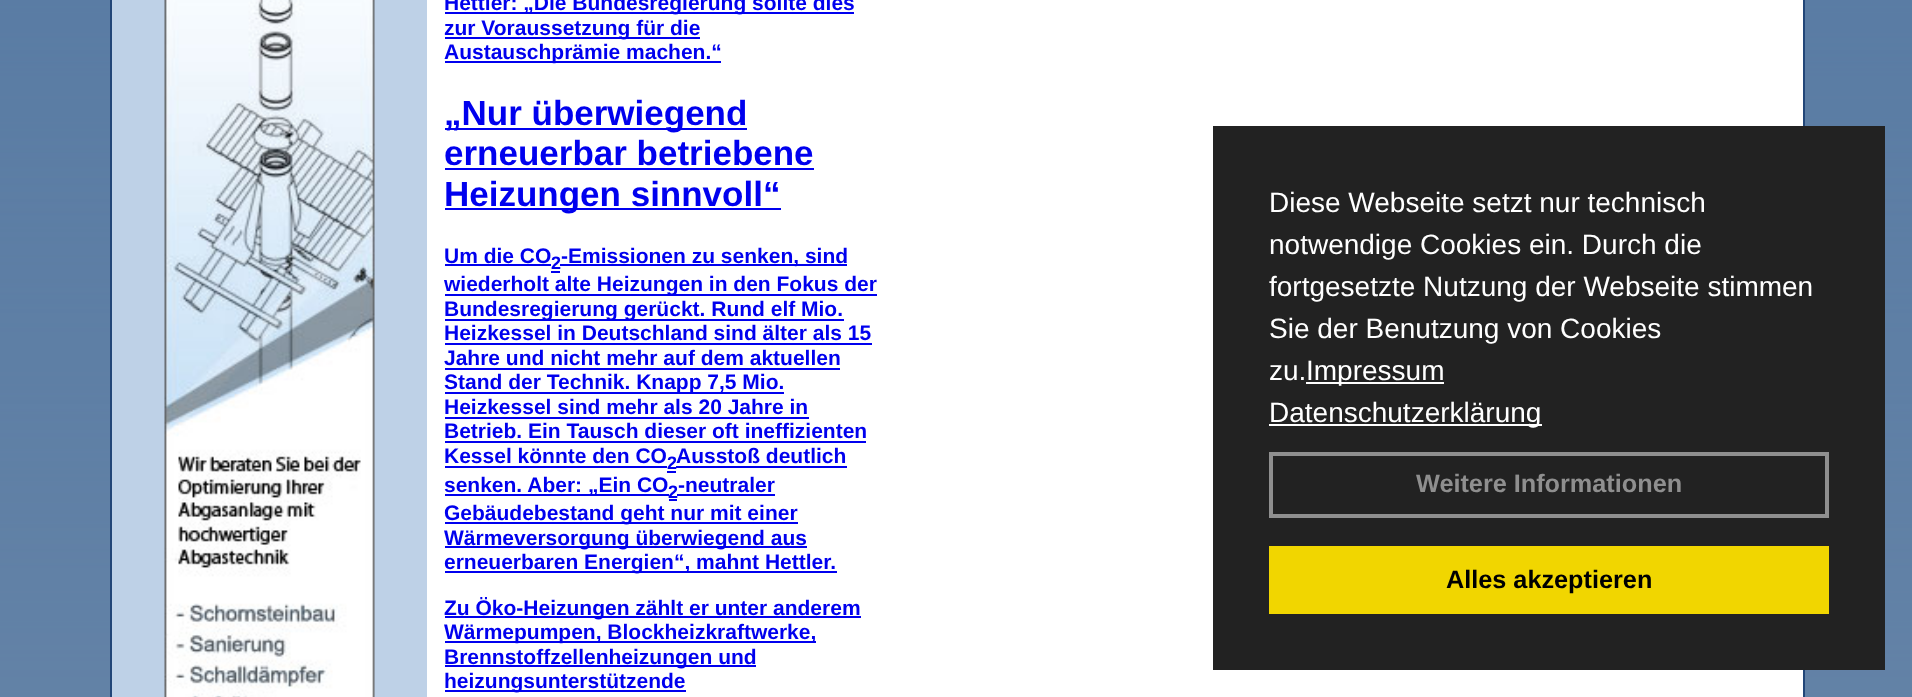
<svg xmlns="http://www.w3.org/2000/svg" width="1912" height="697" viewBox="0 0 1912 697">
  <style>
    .t1 { font: bold 21px Liberation Sans; fill: #00e; }
    .t2 { font: bold 35px Liberation Sans; fill: #00e; }
    .t3 { font: bold 18px Liberation Sans; fill: #00e; }
    .t4 { font: 28px Liberation Sans; fill: #fff; }
    .t5 { font: bold 25.25px Liberation Sans; fill: #8f8f8f; }
    .t6 { font: bold 25.25px Liberation Sans; fill: #000; }
  </style>
  <rect width="100%" height="100%" fill="#fff"/>
  <image x="0" y="0" width="1912" height="697" href="images/1.png"/>
  <rect x="1803" y="0" width="2" height="697" fill="#224678"/>
  <rect x="110" y="0" width="2" height="697" fill="#224678"/>
  <rect x="112" y="0" width="315" height="697" fill="#bed1e7"/>
  <image x="164" y="0" width="211" height="697" href="images/2.png"/>
  <rect x="427" y="0" width="1376" height="697" fill="#fff"/>
  <rect x="445" y="12" width="409" height="2" fill="#00e"/>
  <text x="444" y="10" class="t1">Hettler: „Die Bundesregierung sollte dies</text>
  <rect x="445" y="37" width="255" height="2" fill="#00e"/>
  <text x="444" y="35" class="t1">zur Voraussetzung für die</text>
  <rect x="445" y="61" width="276" height="2" fill="#00e"/>
  <text x="444" y="59" class="t1">Austauschprämie machen.“</text>
  <rect x="445" y="128" width="302" height="2" fill="#00e"/>
  <text x="444" y="125" class="t2">„Nur überwiegend</text>
  <text x="444" y="165" class="t2">erneuerbar betriebene</text>
  <rect x="445" y="168" width="369" height="2" fill="#00e"/>
  <rect x="445" y="208" width="336" height="2" fill="#00e"/>
  <text x="444" y="206" class="t2">Heizungen sinnvoll“</text>
  <text x="444" y="263" class="t1">Um die CO</text>
  <rect x="445" y="264" width="106" height="2" fill="#00e"/>
  <text x="551" y="269" class="t3">2</text>
  <rect x="551" y="271" width="9" height="2" fill="#00e"/>
  <rect x="560" y="264" width="287" height="2" fill="#00e"/>
  <text x="561" y="263" class="t1">-Emissionen zu senken, sind</text>
  <rect x="445" y="294" width="432" height="2" fill="#00e"/>
  <text x="444" y="291" class="t1">wiederholt alte Heizungen in den Fokus der</text>
  <rect x="445" y="319" width="399" height="2" fill="#00e"/>
  <text x="444" y="316" class="t1">Bundesregierung gerückt. Rund elf Mio.</text>
  <text x="444" y="340" class="t1">Heizkessel in Deutschland sind älter als 15</text>
  <rect x="445" y="343" width="427" height="2" fill="#00e"/>
  <text x="444" y="365" class="t1">Jahre und nicht mehr auf dem aktuellen</text>
  <rect x="445" y="368" width="395" height="2" fill="#00e"/>
  <rect x="445" y="392" width="339" height="2" fill="#00e"/>
  <text x="444" y="389" class="t1">Stand der Technik. Knapp 7,5 Mio.</text>
  <text x="444" y="414" class="t1">Heizkessel sind mehr als 20 Jahre in</text>
  <rect x="445" y="417" width="364" height="2" fill="#00e"/>
  <text x="444" y="438" class="t1">Betrieb. Ein Tausch dieser oft ineffizienten</text>
  <rect x="445" y="441" width="421" height="2" fill="#00e"/>
  <text x="444" y="463" class="t1">Kessel könnte den CO</text>
  <rect x="445" y="466" width="222" height="2" fill="#00e"/>
  <text x="667" y="469" class="t3">2</text>
  <rect x="667" y="471" width="9" height="2" fill="#00e"/>
  <text x="676" y="463" class="t1">Ausstoß deutlich</text>
  <rect x="676" y="466" width="171" height="2" fill="#00e"/>
  <rect x="445" y="494" width="224" height="2" fill="#00e"/>
  <text x="444" y="492" class="t1">senken. Aber: „Ein CO</text>
  <text x="668" y="498" class="t3">2</text>
  <rect x="669" y="499" width="8" height="2" fill="#00e"/>
  <text x="678" y="492" class="t1">-neutraler</text>
  <rect x="677" y="494" width="98" height="2" fill="#00e"/>
  <rect x="445" y="522" width="353" height="2" fill="#00e"/>
  <text x="444" y="520" class="t1">Gebäudebestand geht nur mit einer</text>
  <rect x="445" y="546" width="362" height="2" fill="#00e"/>
  <text x="444" y="545" class="t1">Wärmeversorgung überwiegend aus</text>
  <rect x="445" y="571" width="392" height="2" fill="#00e"/>
  <text x="444" y="569" class="t1">erneuerbaren Energien“, mahnt Hettler.</text>
  <rect x="445" y="616" width="416" height="2" fill="#00e"/>
  <text x="444" y="615" class="t1">Zu Öko-Heizungen zählt er unter anderem</text>
  <rect x="445" y="641" width="371" height="2" fill="#00e"/>
  <text x="444" y="639" class="t1">Wärmepumpen, Blockheizkraftwerke,</text>
  <rect x="445" y="665" width="311" height="2" fill="#00e"/>
  <text x="444" y="664" class="t1">Brennstoffzellenheizungen und</text>
  <rect x="445" y="690" width="241" height="2" fill="#00e"/>
  <text x="444" y="688" class="t1">heizungsunterstützende</text>
  <rect x="1213" y="126" width="672" height="544" fill="#222"/>
  <text x="1269" y="212" class="t4">Diese Webseite setzt nur technisch</text>
  <text x="1269" y="254" class="t4">notwendige Cookies ein. Durch die</text>
  <text x="1269" y="296" class="t4">fortgesetzte Nutzung der Webseite stimmen</text>
  <text x="1269" y="338" class="t4">Sie der Benutzung von Cookies</text>
  <text x="1269" y="380" class="t4">zu.</text>
  <rect x="1306" y="382" width="138" height="2" fill="#fff"/>
  <text x="1306" y="380" class="t4">Impressum</text>
  <rect x="1269" y="424" width="273" height="2" fill="#fff"/>
  <text x="1269" y="422" class="t4">Datenschutzerklärung</text>
  <rect x="1271" y="454" width="556" height="62" fill="none" stroke="#8f8f8f" stroke-width="4"/>
  <text x="1416" y="492" class="t5">Weitere Informationen</text>
  <rect x="1269" y="546" width="560" height="68" fill="#f1d600"/>
  <text x="1446" y="588" class="t6">Alles akzeptieren</text>
</svg>
